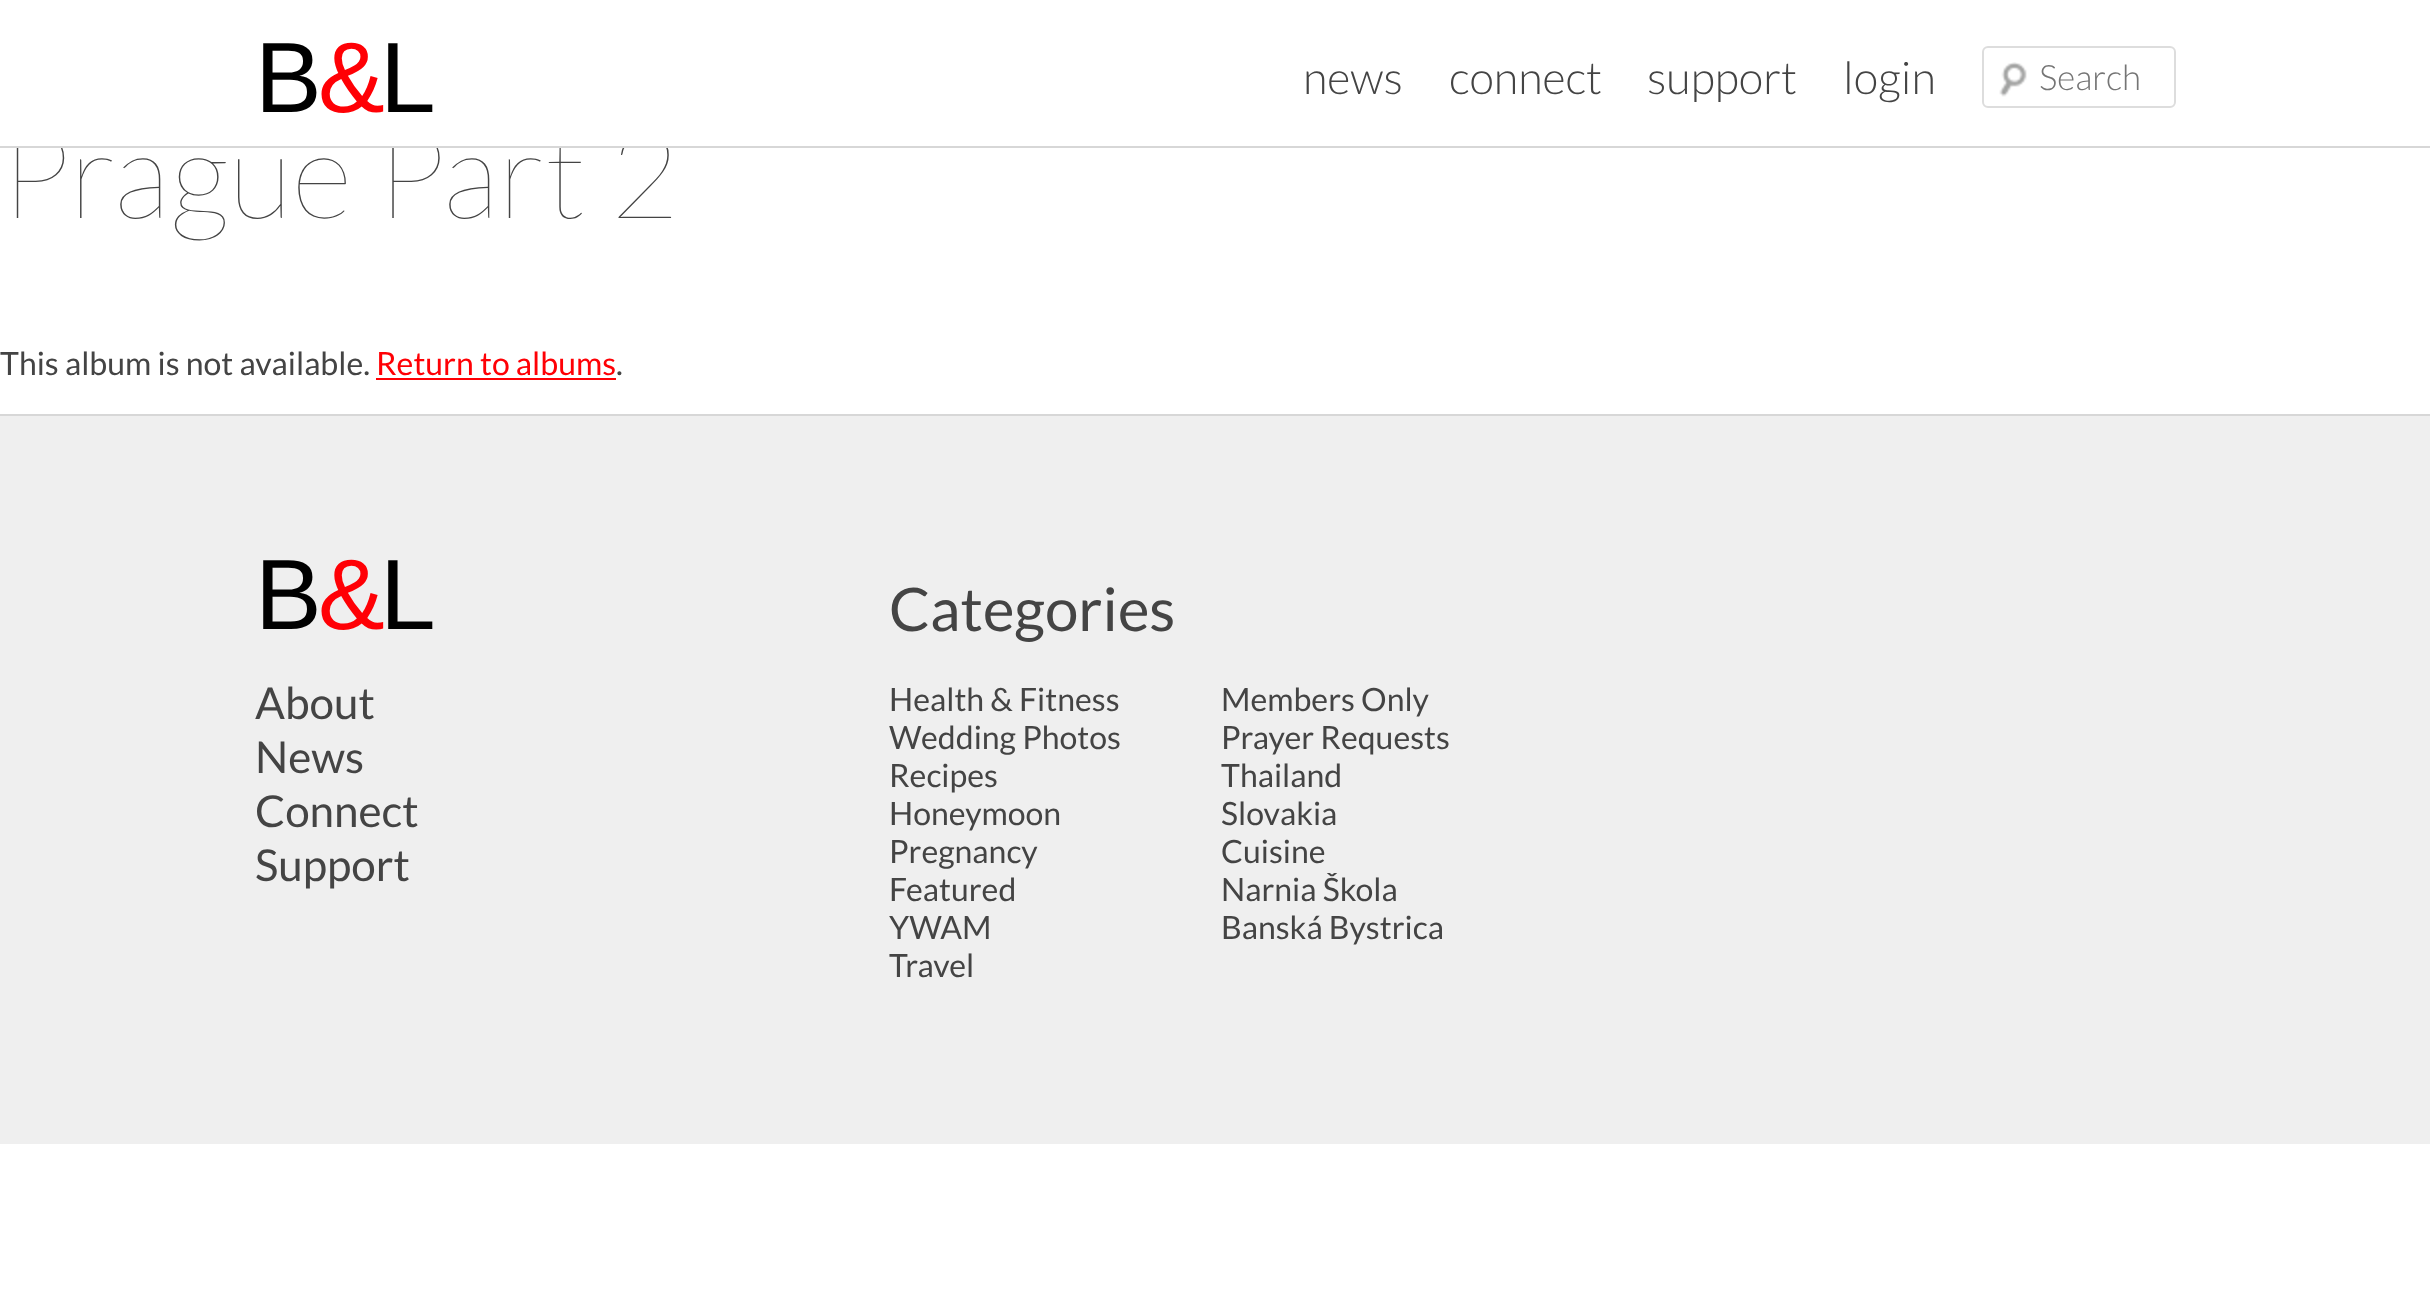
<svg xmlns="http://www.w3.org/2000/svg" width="2430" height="1307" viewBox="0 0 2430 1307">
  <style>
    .t1 { font: 100 120px Lato; fill: #444; }
    .t2 { font: 100px Liberation Sans; letter-spacing: -4px; fill: #000; }
    .t3 { font: 100px Liberation Sans; letter-spacing: -4px; fill: #ff0005; }
    .t4 { font: 300 45px Lato; fill: #444; }
    .t5 { font: 300 35px Lato; fill: #757575; }
    .t6 { font: 32px Lato; fill: #444; }
    .t7 { font: 32px Lato; fill: #ff0005; }
    .t8 { font: 44px Lato; fill: #444; }
    .t9 { font: 60px Lato; fill: #444; }
  </style>
  <rect width="100%" height="100%" fill="#fff"/>
  <text x="0" y="218" class="t1">Prague Part 2</text>
  <rect x="16" y="133" width="652" height="13" fill="#fff"/>
  <rect x="0" y="146" width="2430" height="2" fill="#d7d7d7"/>
  <text x="255" y="112" class="t2">B</text>
  <text x="318" y="112" class="t3">&amp;</text>
  <text x="380" y="112" class="t2">L</text>
  <text x="1303" y="94" class="t4">news</text>
  <text x="1449" y="94" class="t4">connect</text>
  <text x="1647" y="94" class="t4">support</text>
  <text x="1843" y="94" class="t4">login</text>
  <image x="1999" y="62" width="28" height="35" href="images/1.png"/>
  <rect x="1983" y="47" width="192" height="60" rx="5" fill="none" stroke="#ddd" stroke-width="2"/>
  <text x="2039" y="90" class="t5">Search</text>
  <text x="0" y="375" class="t6">This album is not available.</text>
  <text x="376" y="375" class="t7">Return to albums</text>
  <rect x="376" y="378" width="240" height="2" fill="#ff0005"/>
  <text x="616" y="375" class="t6">.</text>
  <rect x="0" y="416" width="2430" height="728" fill="#efefef"/>
  <rect x="0" y="414" width="2430" height="2" fill="#d7d7d7"/>
  <text x="255" y="629" class="t2">B</text>
  <text x="318" y="629" class="t3">&amp;</text>
  <text x="380" y="629" class="t2">L</text>
  <text x="255" y="719" class="t8">About</text>
  <text x="255" y="773" class="t8">News</text>
  <text x="255" y="827" class="t8">Connect</text>
  <text x="255" y="881" class="t8">Support</text>
  <text x="889" y="631" class="t9">Categories</text>
  <text x="889" y="711" class="t6">Health &amp; Fitness</text>
  <text x="1221" y="711" class="t6">Members Only</text>
  <text x="1221" y="749" class="t6">Prayer Requests</text>
  <text x="889" y="749" class="t6">Wedding Photos</text>
  <text x="889" y="787" class="t6">Recipes</text>
  <text x="1221" y="787" class="t6">Thailand</text>
  <text x="889" y="825" class="t6">Honeymoon</text>
  <text x="1221" y="825" class="t6">Slovakia</text>
  <text x="1221" y="863" class="t6">Cuisine</text>
  <text x="1221" y="901" class="t6">Narnia Škola</text>
  <text x="1221" y="939" class="t6">Banská Bystrica</text>
  <text x="889" y="863" class="t6">Pregnancy</text>
  <text x="889" y="901" class="t6">Featured</text>
  <text x="889" y="939" class="t6">YWAM</text>
  <text x="889" y="977" class="t6">Travel</text>
</svg>
